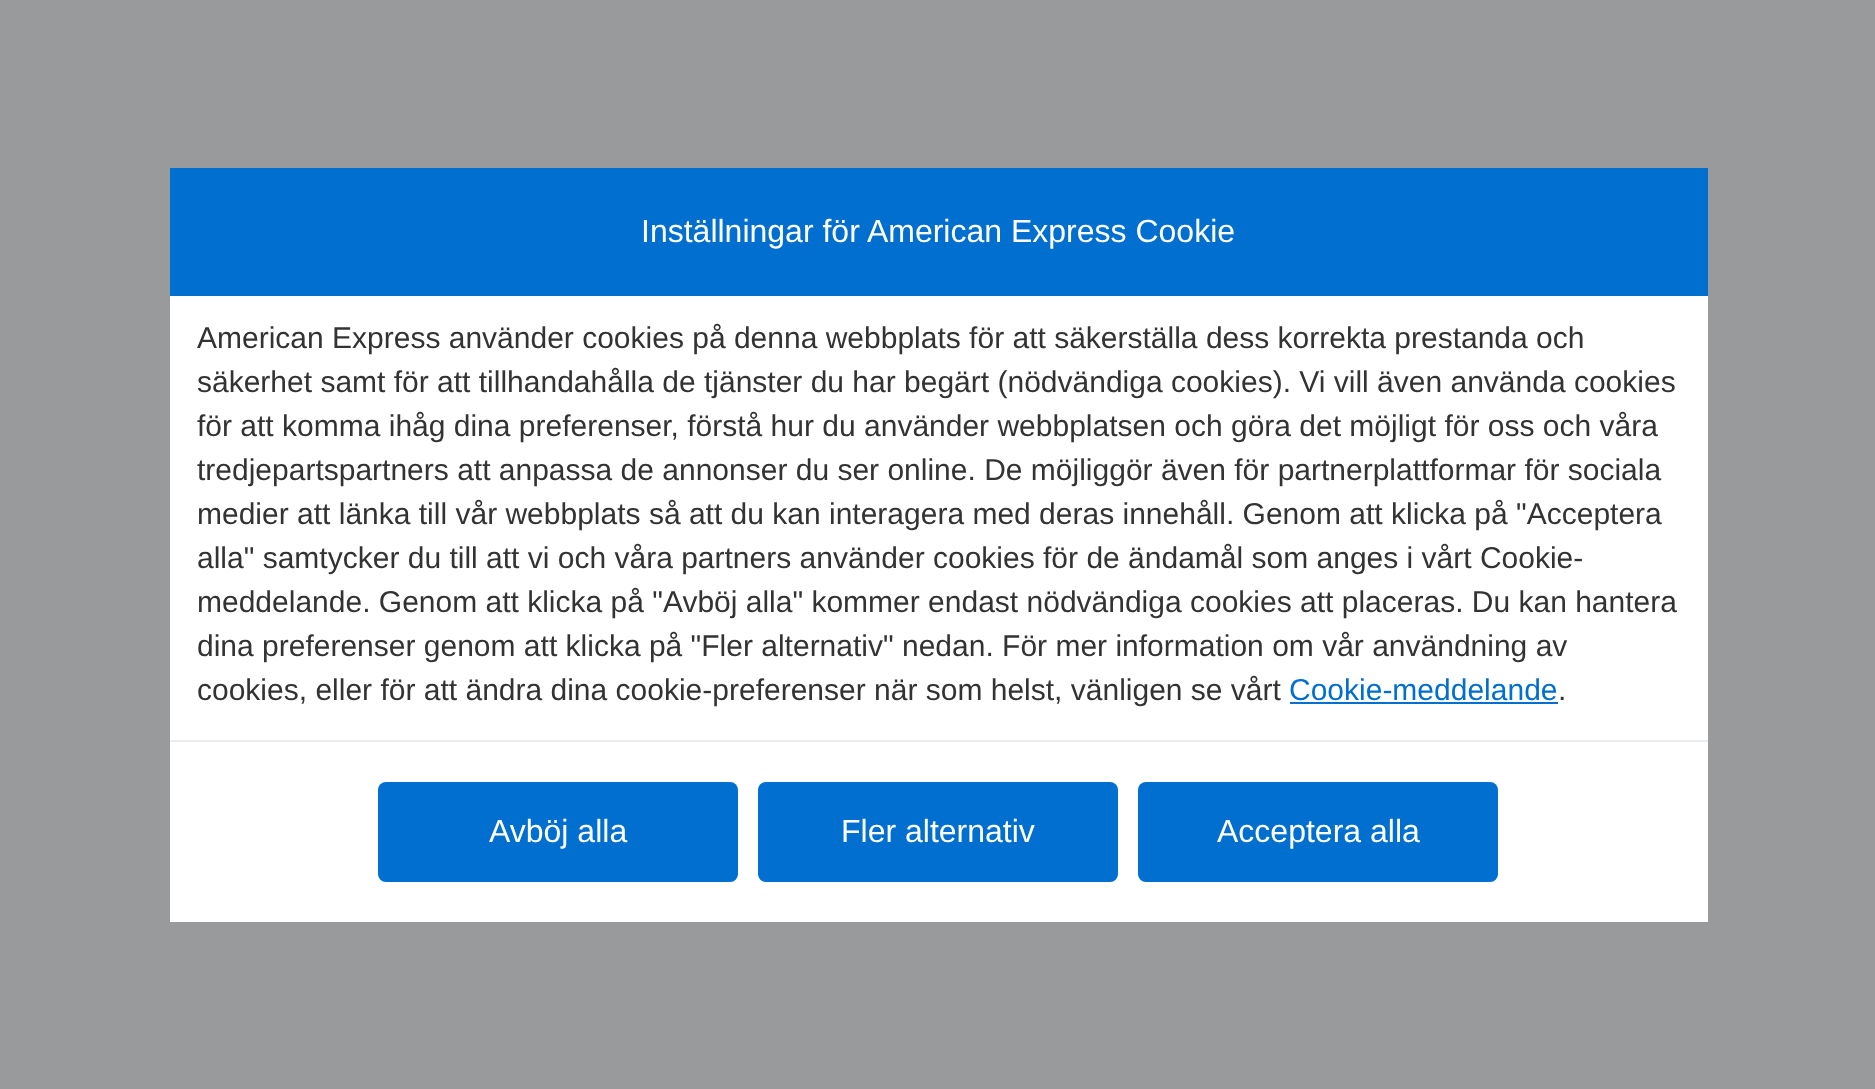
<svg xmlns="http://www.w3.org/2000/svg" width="1875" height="1089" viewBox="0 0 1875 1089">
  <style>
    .t1 { font: 32px Liberation Sans; fill: #fff; }
    .t2 { font: 30px Liberation Sans; fill: #333; }
    .t3 { font: 30px Liberation Sans; fill: #006fcf; }
  </style>
  <rect width="100%" height="100%" fill="#989a9c"/>
  <rect x="170" y="296" width="1538" height="626" fill="#fff"/>
  <rect x="170" y="168" width="1538" height="128" fill="#006fcf"/>
  <text x="641" y="242" class="t1">Inställningar för American Express Cookie</text>
  <text x="197" y="348" class="t2">American Express använder cookies på denna webbplats för att säkerställa dess korrekta prestanda och</text>
  <text x="197" y="392" class="t2">säkerhet samt för att tillhandahålla de tjänster du har begärt (nödvändiga cookies). Vi vill även använda cookies</text>
  <text x="197" y="436" class="t2">för att komma ihåg dina preferenser, förstå hur du använder webbplatsen och göra det möjligt för oss och våra</text>
  <text x="197" y="480" class="t2">tredjepartspartners att anpassa de annonser du ser online. De möjliggör även för partnerplattformar för sociala</text>
  <text x="197" y="524" class="t2">medier att länka till vår webbplats så att du kan interagera med deras innehåll. Genom att klicka på "Acceptera</text>
  <text x="197" y="568" class="t2">alla" samtycker du till att vi och våra partners använder cookies för de ändamål som anges i vårt Cookie-</text>
  <text x="197" y="612" class="t2">meddelande. Genom att klicka på "Avböj alla" kommer endast nödvändiga cookies att placeras. Du kan hantera</text>
  <text x="197" y="656" class="t2">dina preferenser genom att klicka på "Fler alternativ" nedan. För mer information om vår användning av</text>
  <text x="197" y="700" class="t2">cookies, eller för att ändra dina cookie-preferenser när som helst, vänligen se vårt</text>
  <text x="1289" y="700" class="t3">Cookie-meddelande</text>
  <rect x="1290" y="702" width="268" height="2" fill="#006fcf"/>
  <text x="1558" y="700" class="t2">.</text>
  <rect x="170" y="740" width="1538" height="2" fill="#ecedee"/>
  <rect x="378" y="782" width="360" height="100" rx="8" fill="#006fcf"/>
  <text x="489" y="842" class="t1">Avböj alla</text>
  <rect x="758" y="782" width="360" height="100" rx="8" fill="#006fcf"/>
  <text x="841" y="842" class="t1">Fler alternativ</text>
  <rect x="1138" y="782" width="360" height="100" rx="8" fill="#006fcf"/>
  <text x="1217" y="842" class="t1">Acceptera alla</text>
</svg>
